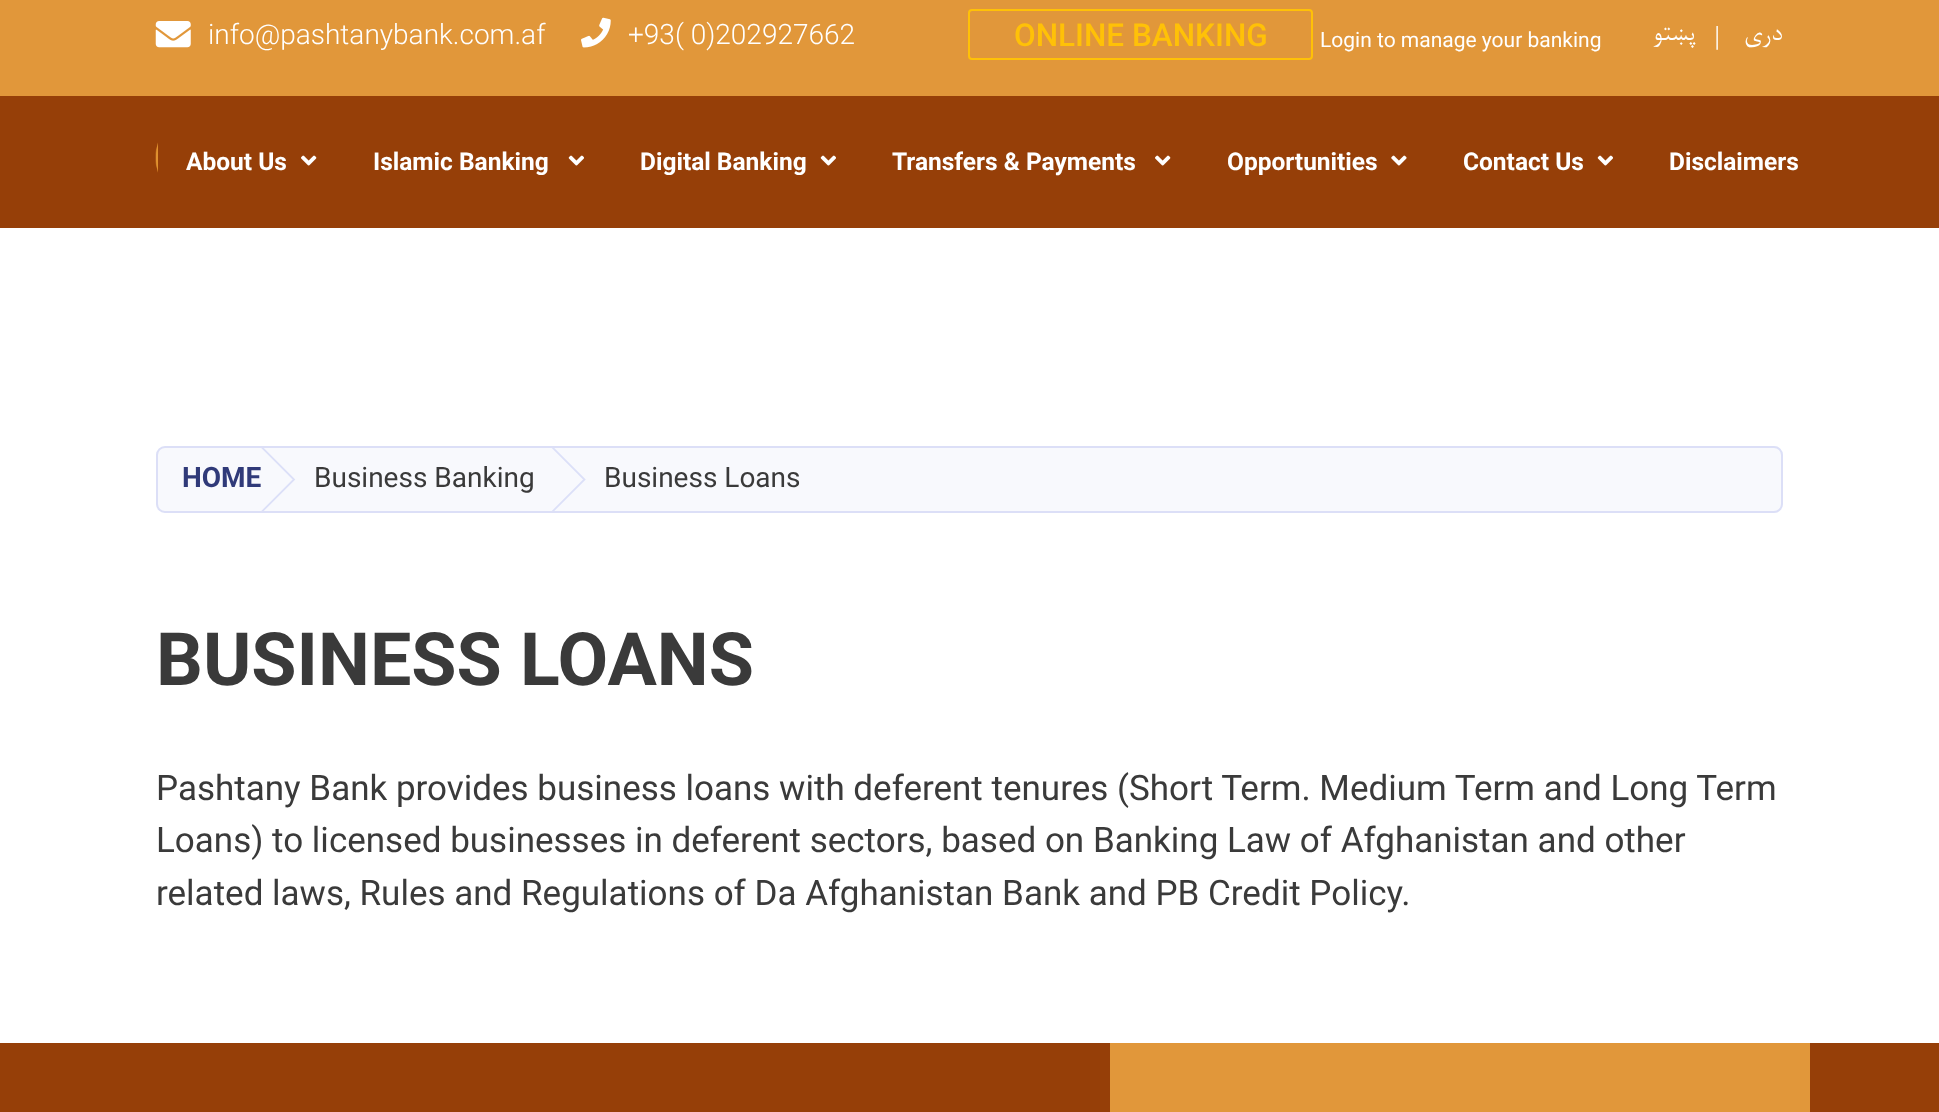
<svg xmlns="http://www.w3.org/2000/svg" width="1939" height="1112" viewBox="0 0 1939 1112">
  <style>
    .t1 { font: 300 28px Roboto; fill: #fff; }
    .t2 { font: 500 31.5px Roboto; fill: #ffc107; }
    .t3 { font: 21px Roboto; fill: #fff; }
    .t4 { font: 28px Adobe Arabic; direction: rtl; fill: #fff; }
    .t5 { font: bold 24.5px Roboto; fill: #fff; }
    .t6 { font: bold 28px Roboto; fill: #303a79; }
    .t7 { font: 28px Roboto; fill: #3a3a3a; }
    .t8 { font: bold 73.5px Roboto; fill: #3a3a3a; }
    .t9 { font: 35px Roboto; fill: #3a3a3a; }
  </style>
  <defs>
    <clipPath id="clip1"><rect x="261" y="448" width="290" height="63"/></clipPath>
    <clipPath id="clip2"><rect x="551" y="448" width="268" height="63"/></clipPath>
  </defs>
  <rect width="100%" height="100%" fill="#fff"/>
  <rect x="0" y="96" width="1939" height="132" fill="#963f08"/>
  <image x="155" y="142" width="3" height="31" href="images/1.png"/>
  <rect x="0" y="0" width="1939" height="96" fill="#e1973a"/>
  <image x="155" y="21" width="36" height="27" href="images/2.png"/>
  <text x="208" y="44" class="t1">info@pashtanybank.com.af</text>
  <image x="581" y="17" width="30" height="31" href="images/3.png"/>
  <text x="628" y="44" class="t1">+93( 0)202927662</text>
  <rect x="969" y="10" width="343" height="49" rx="3" fill="none" stroke="#ffc107" stroke-width="2"/>
  <text x="1014" y="46" class="t2">ONLINE BANKING</text>
  <text x="1320" y="47" class="t3">Login to manage your banking</text>
  <text x="1696" y="40" class="t4">پښتو</text>
  <text x="1714" y="46" class="t1">|</text>
  <text x="1783" y="40" class="t4">دری</text>
  <text x="186" y="170" class="t5">About Us</text>
  <image x="301" y="155" width="16" height="11" href="images/4.png"/>
  <text x="373" y="170" class="t5">Islamic Banking</text>
  <image x="568" y="155" width="16" height="11" href="images/5.png"/>
  <text x="640" y="170" class="t5">Digital Banking</text>
  <image x="820" y="155" width="16" height="11" href="images/5.png"/>
  <text x="892" y="170" class="t5">Transfers &amp; Payments</text>
  <image x="1155" y="155" width="16" height="11" href="images/4.png"/>
  <text x="1227" y="170" class="t5">Opportunities</text>
  <image x="1391" y="155" width="16" height="11" href="images/6.png"/>
  <text x="1463" y="170" class="t5">Contact Us</text>
  <image x="1597" y="155" width="16" height="11" href="images/5.png"/>
  <text x="1669" y="170" class="t5">Disclaimers</text>
  <rect x="156" y="446" width="1627" height="67" rx="9" fill="#f8f9fd"/>
  <rect x="157" y="447" width="1625" height="65" rx="8" fill="none" stroke="#bfc6f280" stroke-width="2"/>
  <text x="182" y="487" class="t6">HOME</text>
  <g clip-path="url(#clip1)">
    <path d="M239.5 425L294 479.5L239.5 534L185 479.5Z" fill="none" stroke="#dce0f8" stroke-width="1.8"/>
  </g>
  <text x="314" y="487" class="t7">Business Banking</text>
  <g clip-path="url(#clip2)">
    <path d="M530 425L584.5 479.5L530 534L475.5 479.5Z" fill="none" stroke="#dce0f8" stroke-width="1.8"/>
  </g>
  <text x="604" y="487" class="t7">Business Loans</text>
  <text x="156" y="685" class="t8">BUSINESS LOANS</text>
  <text x="156" y="800" class="t9">Pashtany Bank provides business loans with deferent tenures (Short Term. Medium Term and Long Term</text>
  <text x="156" y="852" class="t9">Loans) to licensed businesses in deferent sectors, based on Banking Law of Afghanistan and other</text>
  <text x="156" y="905" class="t9">related laws, Rules and Regulations of Da Afghanistan Bank and PB Credit Policy.</text>
  <rect x="0" y="1043" width="1939" height="69" fill="#963f08"/>
  <rect x="1110" y="1043" width="700" height="69" fill="#e1973a"/>
</svg>
